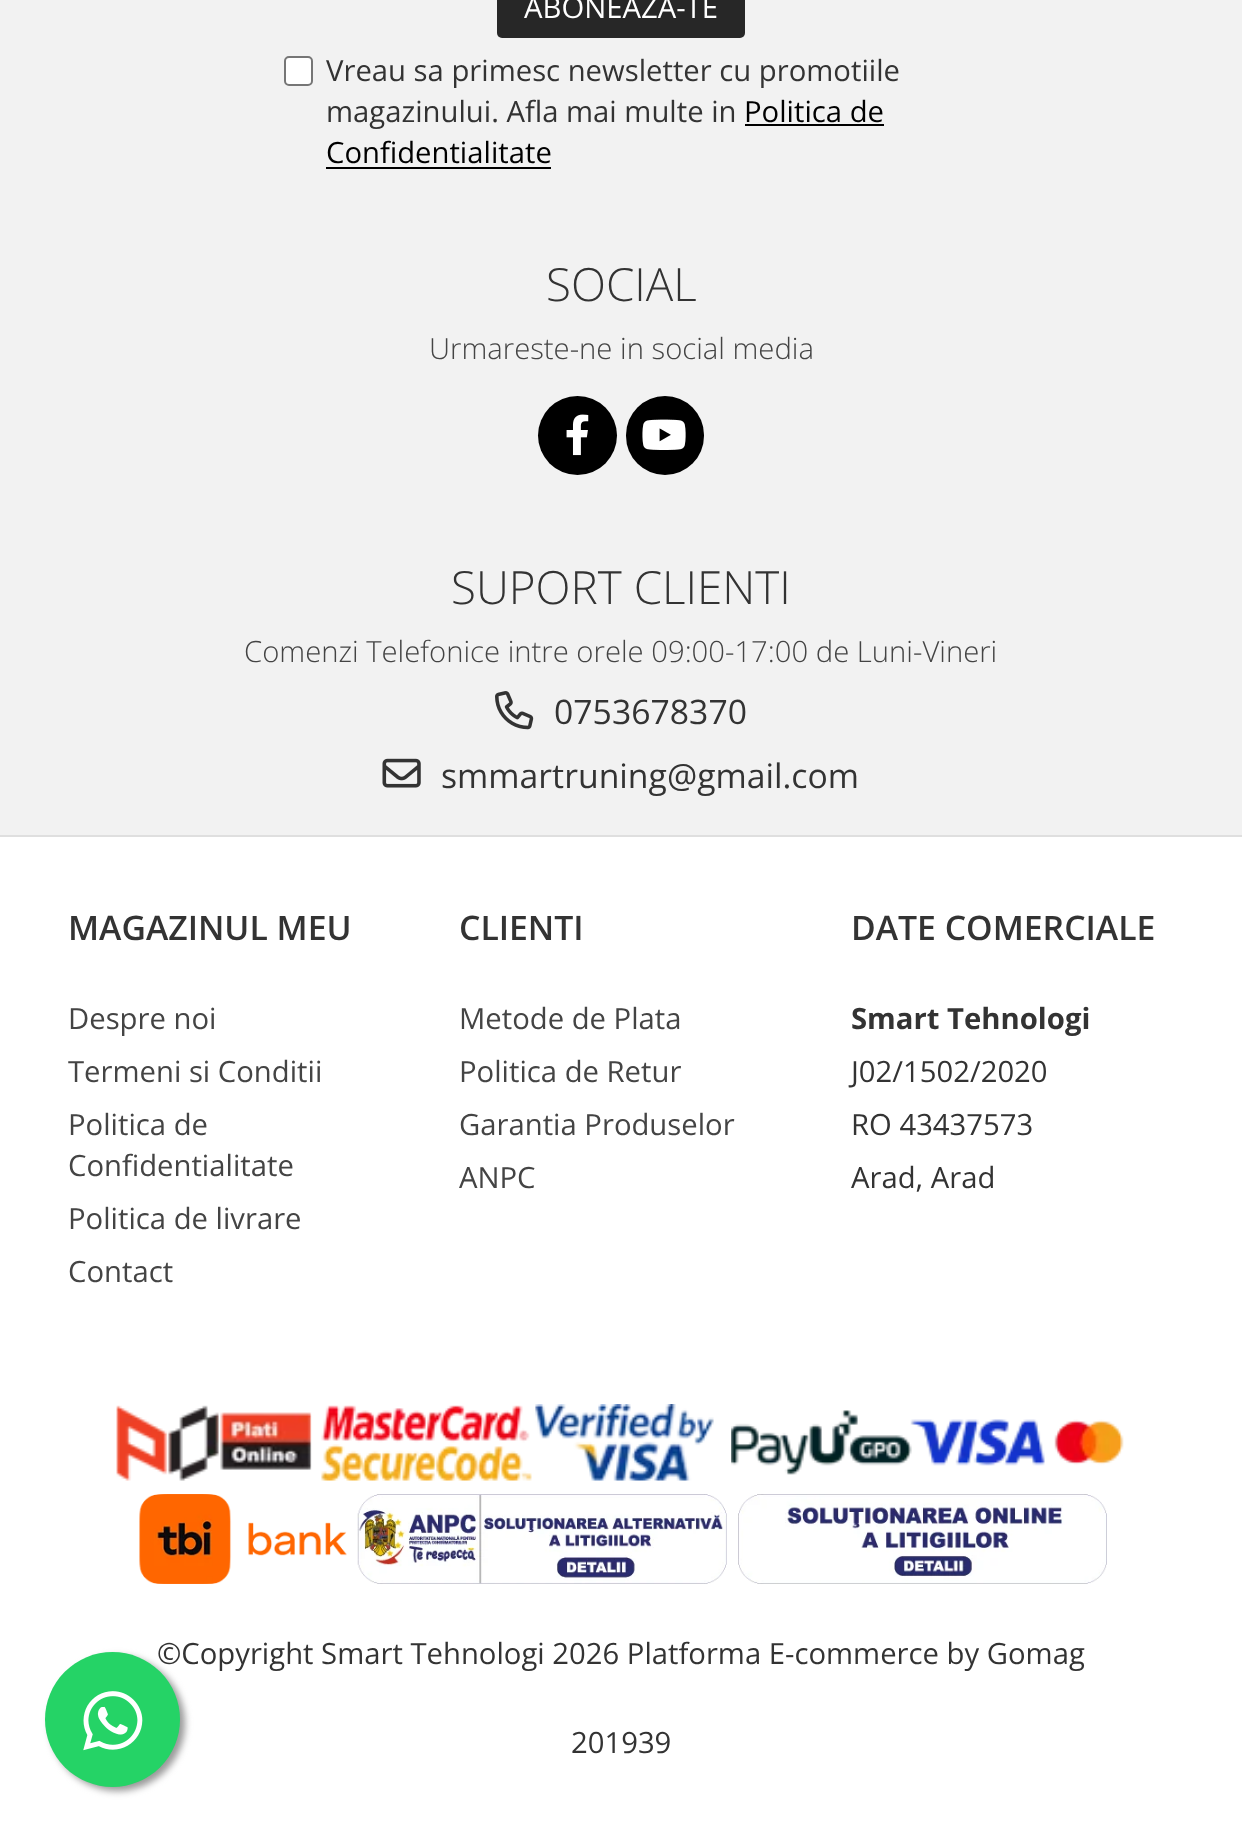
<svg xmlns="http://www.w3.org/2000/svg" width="1242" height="1830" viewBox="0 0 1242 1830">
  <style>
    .t1 { font: 29.25px Open Sans; fill: #fff; }
    .t2 { font: 29.25px Open Sans; fill: #333; }
    .t3 { font: 29.25px Open Sans; fill: #000; }
    .t4 { font: 300 45.75px Open Sans; fill: #333; }
    .t5 { font: 300 29.25px Open Sans; fill: #444; }
    .t6 { font: 33.75px Open Sans; fill: #333; }
    .t7 { font: 600 33.75px Open Sans; fill: #333; }
    .t8 { font: 29.25px Open Sans; fill: #444; }
    .t9 { font: bold 29.25px Open Sans; fill: #333; }
  </style>
  <rect width="100%" height="100%" fill="#fff"/>
  <rect x="0" y="0" width="1242" height="835" fill="#f2f2f2"/>
  <rect x="0" y="835" width="1242" height="2" fill="#dfdfdf"/>
  <rect x="497" y="-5" width="248" height="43" rx="5" fill="#272727"/>
  <text x="524" y="18" class="t1">ABONEAZA-TE</text>
  <rect x="285" y="57" width="27" height="28" rx="4" fill="#fff" stroke="#767676" stroke-width="2"/>
  <text x="326" y="81" class="t2">Vreau sa primesc newsletter cu promotiile</text>
  <text x="326" y="122" class="t2">magazinului. Afla mai multe in</text>
  <text x="744" y="122" class="t3">Politica de</text>
  <rect x="745" y="124" width="139" height="2" fill="#000"/>
  <text x="326" y="163" class="t3">Confidentialitate</text>
  <rect x="326" y="167" width="225" height="2" fill="#000"/>
  <text x="546" y="301" class="t4">SOCIAL</text>
  <text x="429" y="359" class="t5">Urmareste-ne in social media</text>
  <circle cx="577.5" cy="435.5" r="39.5" fill="#000"/>
  <image x="566" y="414" width="23" height="42" href="images/1.png"/>
  <rect x="626" y="396" width="78" height="79" rx="39" fill="#000"/>
  <image x="642" y="419" width="44" height="31" href="images/2.png"/>
  <text x="451" y="604" class="t4">SUPORT CLIENTI</text>
  <text x="244" y="662" class="t5">Comenzi Telefonice intre orele 09:00-17:00 de Luni-Vineri</text>
  <image x="495" y="691" width="39" height="39" href="images/3.png"/>
  <text x="554" y="724" class="t6">0753678370</text>
  <image x="382" y="758" width="39" height="30" href="images/4.png"/>
  <text x="441" y="788" class="t6">smmartruning@gmail.com</text>
  <text x="68" y="940" class="t7">MAGAZINUL MEU</text>
  <text x="68" y="1029" class="t8">Despre noi</text>
  <text x="68" y="1082" class="t8">Termeni si Conditii</text>
  <text x="68" y="1135" class="t8">Politica de</text>
  <text x="68" y="1176" class="t8">Confidentialitate</text>
  <text x="68" y="1229" class="t8">Politica de livrare</text>
  <text x="68" y="1282" class="t8">Contact</text>
  <text x="459" y="940" class="t7">CLIENTI</text>
  <text x="459" y="1029" class="t8">Metode de Plata</text>
  <text x="459" y="1082" class="t8">Politica de Retur</text>
  <text x="459" y="1135" class="t8">Garantia Produselor</text>
  <text x="459" y="1188" class="t8">ANPC</text>
  <text x="851" y="940" class="t7">DATE COMERCIALE</text>
  <text x="851" y="1029" class="t9">Smart Tehnologi</text>
  <text x="851" y="1082" class="t2">J02/1502/2020</text>
  <text x="851" y="1135" class="t2">RO 43437573</text>
  <text x="851" y="1188" class="t2">Arad, Arad</text>
  <image x="116" y="1404" width="598" height="77" href="images/5.png"/>
  <image x="731" y="1410" width="393" height="65" href="images/6.png"/>
  <image x="139" y="1494" width="208" height="90" href="images/7.png"/>
  <image x="357" y="1494" width="370" height="90" href="images/8.png"/>
  <image x="738" y="1494" width="369" height="90" href="images/9.png"/>
  <text x="157" y="1664" class="t2">©Copyright Smart Tehnologi 2026 Platforma E-commerce by Gomag</text>
  <text x="571" y="1753" class="t2">201939</text>
  <rect x="50" y="1656" width="135" height="135" rx="67.5" fill="#999" filter="blur(3.5px)"/>
  <circle cx="112.5" cy="1719.5" r="67.5" fill="#25d366"/>
  <image x="83" y="1691" width="60" height="60" href="images/10.png"/>
</svg>
